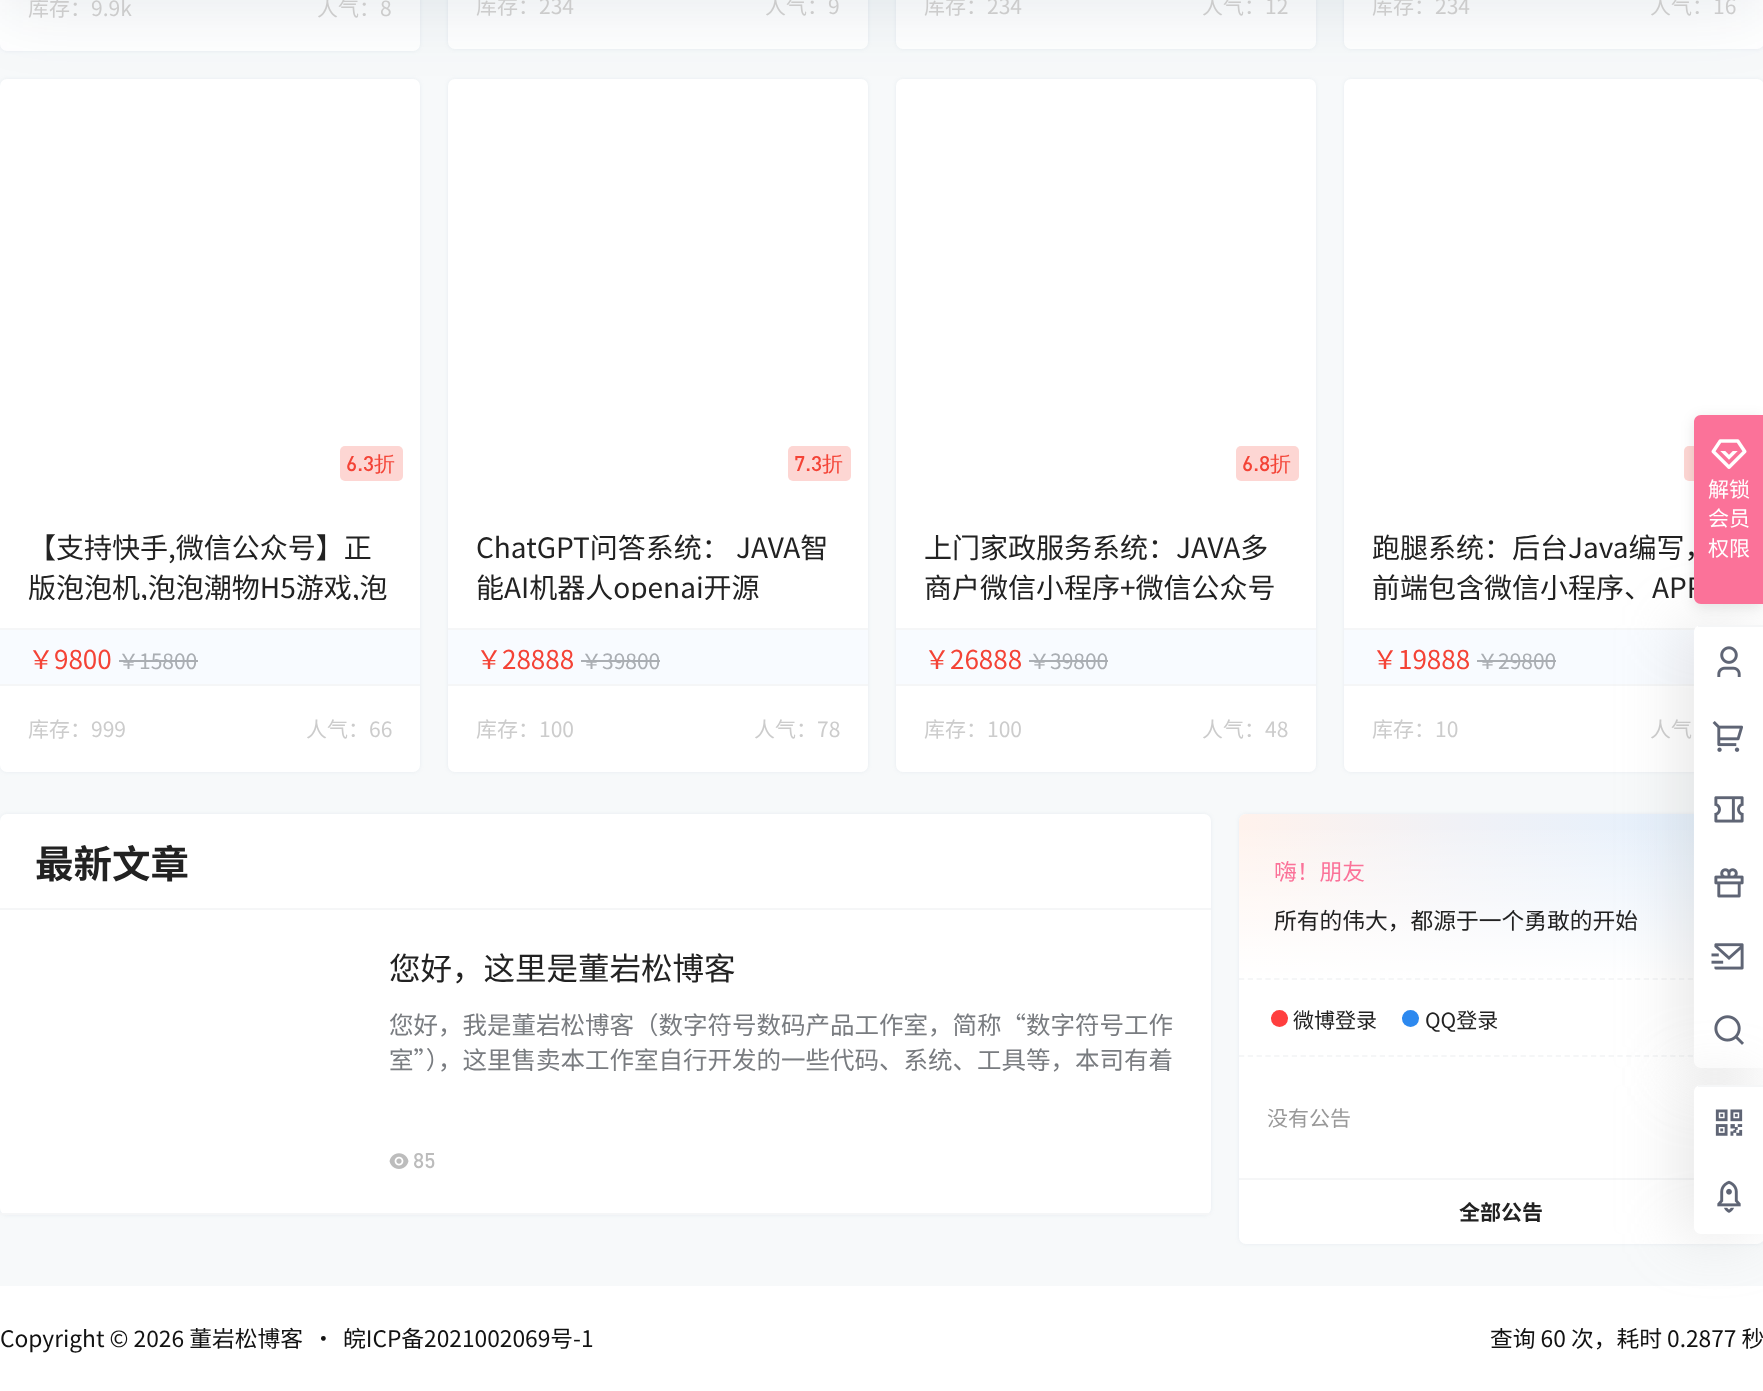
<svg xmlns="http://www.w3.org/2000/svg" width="1763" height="1391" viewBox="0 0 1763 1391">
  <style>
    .t1 { font: 21px Noto Sans CJK SC; fill: #ccc; }
    .t2 { font: 500 21px DIN; fill: #f44336; }
    .t3 { font: 500 21px WenQuanYi Zen Hei; fill: #f44336; }
    .t4 { font: 28px Noto Sans CJK SC; fill: #222; }
    .t5 { font: 26px Noto Sans CJK SC; fill: #f44336; }
    .t6 { font: 21px Noto Sans CJK SC; fill: #aaaeb3; }
    .t7 { font: bold 38.5px Noto Sans CJK SC; fill: #222; }
    .t8 { font: 31.5px Noto Sans CJK SC; fill: #222; }
    .t9 { font: 24.5px Noto Sans CJK SC; fill: #797c80; }
    .t10 { font: 500 21px DIN; fill: #bcbcbc; }
    .t11 { font: 22.75px Noto Sans CJK SC; fill: #fb7299; }
    .t12 { font: 22.75px Noto Sans CJK SC; fill: #222; }
    .t13 { font: 21px Noto Sans CJK SC; fill: #222; }
    .t14 { font: 21px Noto Sans CJK SC; fill: #999; }
    .t15 { font: bold 21px Noto Sans CJK SC; fill: #222; }
    .t16 { font: 21px Noto Sans CJK SC; fill: #fff; }
    .t17 { font: 22.75px Noto Sans CJK SC; fill: #121212; }
  </style>
  <defs>
    <clipPath id="clip1"><rect x="28" y="527" width="364" height="73"/></clipPath>
    <clipPath id="clip2"><rect x="476" y="527" width="364" height="73"/></clipPath>
    <clipPath id="clip3"><rect x="924" y="527" width="364" height="73"/></clipPath>
    <clipPath id="clip4"><rect x="1372" y="527" width="364" height="73"/></clipPath>
    <linearGradient id="g1" gradientUnits="userSpaceOnUse" x1="1239" y1="896" x2="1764" y2="896"><stop offset="0" stop-color="#fff2ec"/><stop offset="0.42" stop-color="#f0f1f6"/><stop offset="1" stop-color="#e1f0ff"/></linearGradient>
    <linearGradient id="g2" gradientUnits="userSpaceOnUse" x1="1502" y1="978" x2="1502" y2="814"><stop offset="0" stop-color="#fff"/><stop offset="1" stop-color="#fff" stop-opacity="0"/></linearGradient>
  </defs>
  <rect width="100%" height="100%" fill="#f7f9fa"/>
  <rect x="0" y="-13" width="420" height="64" rx="7" fill="#627c991a" filter="blur(2px)"/>
  <rect x="0" y="-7" width="420" height="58" rx="7" fill="#fff"/>
  <rect x="448" y="-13" width="420" height="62" rx="7" fill="#627c991a" filter="blur(2px)"/>
  <rect x="448" y="-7" width="420" height="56" rx="7" fill="#fff"/>
  <rect x="896" y="-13" width="420" height="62" rx="7" fill="#627c991a" filter="blur(2px)"/>
  <rect x="896" y="-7" width="420" height="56" rx="7" fill="#fff"/>
  <rect x="1344" y="-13" width="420" height="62" rx="7" fill="#627c991a" filter="blur(2px)"/>
  <rect x="1344" y="-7" width="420" height="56" rx="7" fill="#fff"/>
  <rect x="0" y="79" width="420" height="693" rx="7" fill="#627c991a" filter="blur(2px)"/>
  <rect x="0" y="79" width="420" height="693" rx="7" fill="#fff"/>
  <rect x="448" y="79" width="420" height="693" rx="7" fill="#627c991a" filter="blur(2px)"/>
  <rect x="448" y="79" width="420" height="693" rx="7" fill="#fff"/>
  <rect x="896" y="79" width="420" height="693" rx="7" fill="#627c991a" filter="blur(2px)"/>
  <rect x="896" y="79" width="420" height="693" rx="7" fill="#fff"/>
  <rect x="1344" y="79" width="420" height="693" rx="7" fill="#627c991a" filter="blur(2px)"/>
  <rect x="1344" y="79" width="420" height="693" rx="7" fill="#fff"/>
  <rect x="0" y="-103" width="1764" height="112" fill="#113a5d1a" filter="blur(35px)"/>
  <text x="28" y="16" class="t1">库存：9.9k</text>
  <text x="317" y="16" class="t1">人气：8</text>
  <text x="476" y="14" class="t1">库存：234</text>
  <text x="765" y="14" class="t1">人气：9</text>
  <text x="924" y="14" class="t1">库存：234</text>
  <text x="1202" y="14" class="t1">人气：12</text>
  <text x="1372" y="14" class="t1">库存：234</text>
  <text x="1650" y="14" class="t1">人气：16</text>
  <rect x="340" y="446" width="63" height="35" rx="5" fill="#fdd6d3"/>
  <text x="346" y="471" class="t2">6.3</text>
  <text x="374" y="471" class="t3">折</text>
  <text x="28" y="558" class="t4">【支持快手,微信公众号】正</text>
  <g clip-path="url(#clip1)">
    <text x="28" y="598" class="t4">版泡泡机,泡泡潮物H5游戏,泡</text>
  </g>
  <rect x="0" y="630" width="420" height="54" fill="#f8fbff"/>
  <rect x="0" y="628" width="420" height="2" fill="#f5f6f7"/>
  <rect x="0" y="684" width="420" height="2" fill="#f5f6f7"/>
  <text x="28" y="669" class="t5">￥9800</text>
  <text x="118" y="669" class="t6">￥15800</text>
  <rect x="119" y="660" width="79" height="2" fill="#aaaeb3"/>
  <text x="28" y="737" class="t1">库存：999</text>
  <text x="306" y="737" class="t1">人气：66</text>
  <rect x="788" y="446" width="63" height="35" rx="5" fill="#fdd6d3"/>
  <text x="794" y="471" class="t2">7.3</text>
  <text x="822" y="471" class="t3">折</text>
  <text x="476" y="558" class="t4">ChatGPT问答系统： JAVA智</text>
  <g clip-path="url(#clip2)">
    <text x="476" y="598" class="t4">能AI机器人openai开源</text>
  </g>
  <rect x="448" y="630" width="420" height="54" fill="#f8fbff"/>
  <rect x="448" y="628" width="420" height="2" fill="#f5f6f7"/>
  <rect x="448" y="684" width="420" height="2" fill="#f5f6f7"/>
  <text x="476" y="669" class="t5">￥28888</text>
  <text x="581" y="669" class="t6">￥39800</text>
  <rect x="581" y="660" width="79" height="2" fill="#aaaeb3"/>
  <text x="476" y="737" class="t1">库存：100</text>
  <text x="754" y="737" class="t1">人气：78</text>
  <rect x="1236" y="446" width="63" height="35" rx="5" fill="#fdd6d3"/>
  <text x="1242" y="471" class="t2">6.8</text>
  <text x="1270" y="471" class="t3">折</text>
  <text x="924" y="558" class="t4">上门家政服务系统：JAVA多</text>
  <g clip-path="url(#clip3)">
    <text x="924" y="598" class="t4">商户微信小程序+微信公众号</text>
  </g>
  <rect x="896" y="630" width="420" height="54" fill="#f8fbff"/>
  <rect x="896" y="628" width="420" height="2" fill="#f5f6f7"/>
  <rect x="896" y="684" width="420" height="2" fill="#f5f6f7"/>
  <text x="924" y="669" class="t5">￥26888</text>
  <text x="1029" y="669" class="t6">￥39800</text>
  <rect x="1029" y="660" width="79" height="2" fill="#aaaeb3"/>
  <text x="924" y="737" class="t1">库存：100</text>
  <text x="1202" y="737" class="t1">人气：48</text>
  <rect x="1684" y="446" width="63" height="35" rx="5" fill="#fdd6d3"/>
  <text x="1372" y="558" class="t4">跑腿系统：后台Java编写，</text>
  <g clip-path="url(#clip4)">
    <text x="1372" y="598" class="t4">前端包含微信小程序、APP</text>
  </g>
  <rect x="1344" y="630" width="351" height="54" fill="#f8fbff"/>
  <rect x="1344" y="628" width="352" height="2" fill="#f5f6f7"/>
  <rect x="1344" y="684" width="350" height="2" fill="#f5f6f7"/>
  <text x="1372" y="669" class="t5">￥19888</text>
  <text x="1477" y="669" class="t6">￥29800</text>
  <rect x="1477" y="660" width="79" height="2" fill="#aaaeb3"/>
  <text x="1372" y="737" class="t1">库存：10</text>
  <text x="1650" y="737" class="t1">人气</text>
  <rect x="0" y="814" width="1211" height="401" rx="7" fill="#627c991a" filter="blur(2px)"/>
  <rect x="0" y="814" width="1211" height="401" rx="7" fill="#fff"/>
  <rect x="0" y="908" width="1211" height="2" fill="#f5f6f7"/>
  <text x="35" y="878" class="t7">最新文章</text>
  <rect x="0" y="1213" width="1211" height="2" fill="#f5f6f7"/>
  <text x="389" y="980" class="t8">您好，这里是董岩松博客</text>
  <text x="389" y="1034" class="t9">您好，我是董岩松博客（数字符号数码产品工作室，简称“数字符号工作</text>
  <text x="389" y="1069" class="t9">室”），这里售卖本工作室自行开发的一些代码、系统、工具等，本司有着</text>
  <image x="389" y="1153" width="20" height="16" href="images/1.png"/>
  <text x="413" y="1168" class="t10">85</text>
  <rect x="1239" y="814" width="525" height="430" rx="7" fill="#627c991a" filter="blur(2px)"/>
  <rect x="1239" y="814" width="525" height="430" rx="7" fill="#fff"/>
  <path d="M1246 814H1757C1761 814 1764 817 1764 821V978H1239V821C1239 817 1242 814 1246 814Z" fill="url(#g1)"/>
  <rect x="1239" y="830" width="455" height="148" fill="url(#g2)"/>
  <text x="1274" y="880" class="t11">嗨！朋友</text>
  <text x="1274" y="929" class="t12">所有的伟大，都源于一个勇敢的开始</text>
  <path d="M1239 979H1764" fill="none" stroke="#f5f6f7" stroke-width="1.8" stroke-dasharray="5.25 3.55"/>
  <path d="M1239 1056H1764" fill="none" stroke="#f5f6f7" stroke-width="1.8" stroke-dasharray="5.25 3.55"/>
  <circle cx="1279.5" cy="1018.5" r="8.5" fill="#ff3e3e"/>
  <text x="1293" y="1028" class="t13">微博登录</text>
  <circle cx="1410.5" cy="1018.5" r="8.5" fill="#2d89ef"/>
  <text x="1425" y="1028" class="t13">QQ登录</text>
  <text x="1267" y="1126" class="t14">没有公告</text>
  <rect x="1239" y="1178" width="455" height="2" fill="#f5f6f7"/>
  <text x="1459" y="1220" class="t15">全部公告</text>
  <rect x="1680" y="625" width="70" height="443" rx="7" fill="#b5b5b552" filter="blur(30.5px)"/>
  <path d="M1701 625H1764V1068H1701C1697 1068 1694 1065 1694 1061V632C1694 628 1697 625 1701 625Z" fill="#fff"/>
  <rect x="1698" y="625" width="65" height="2" fill="#f5f6f7"/>
  <rect x="1694" y="418" width="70" height="189" rx="7" fill="#0000001a" filter="blur(7px)"/>
  <path d="M1701 415H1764V604H1701C1697 604 1694 601 1694 597V422C1694 418 1697 415 1701 415Z" fill="#fb7299"/>
  <image x="1711" y="439" width="36" height="30" href="images/2.png"/>
  <text x="1708" y="497" class="t16">解锁</text>
  <text x="1708" y="526" class="t16">会员</text>
  <text x="1708" y="556" class="t16">权限</text>
  <image x="1717" y="646" width="24" height="31" href="images/3.png"/>
  <image x="1712" y="721" width="31" height="31" href="images/4.png"/>
  <image x="1714" y="796" width="30" height="27" href="images/5.png"/>
  <image x="1714" y="868" width="30" height="30" href="images/6.png"/>
  <image x="1711" y="943" width="33" height="27" href="images/7.png"/>
  <image x="1714" y="1015" width="30" height="30" href="images/8.png"/>
  <rect x="0" y="1286" width="1763" height="105" fill="#fff"/>
  <rect x="1680" y="1085" width="70" height="149" rx="7" fill="#b5b5b552" filter="blur(30.5px)"/>
  <path d="M1701 1085H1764V1234H1701C1697 1234 1694 1231 1694 1227V1092C1694 1088 1697 1085 1701 1085Z" fill="#fff"/>
  <rect x="1698" y="1085" width="65" height="2" fill="#f5f6f7"/>
  <image x="1715" y="1109" width="28" height="27" href="images/9.png"/>
  <image x="1717" y="1180" width="24" height="33" href="images/10.png"/>
  <text x="0" y="1347" class="t17">Copyright © 2026 董岩松博客</text>
  <text x="312" y="1347" class="t17">・</text>
  <text x="343" y="1347" class="t17">皖ICP备2021002069号-1</text>
  <text x="1490" y="1347" class="t17">查询 60 次，耗时 0.2877 秒</text>
</svg>
